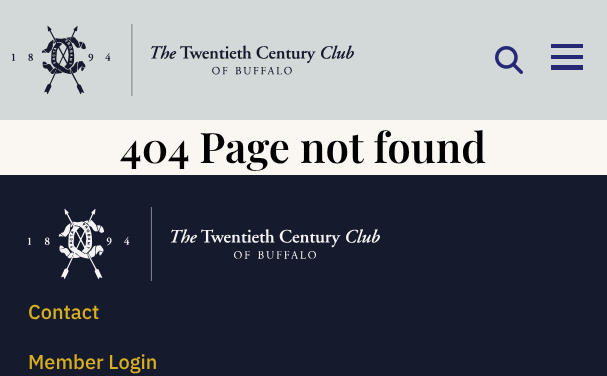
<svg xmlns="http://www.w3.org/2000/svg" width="607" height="376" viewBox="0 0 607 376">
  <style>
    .t1 { font: 600 42px Playfair Display; fill: #000; }
    .t2 { font: 500 20px IBM Plex Sans; fill: #d7af20; }
  </style>
  <rect width="100%" height="100%" fill="#faf6f2"/>
  <rect x="0" y="0" width="607" height="120" fill="#d3d8d9"/>
  <image x="12" y="24" width="342" height="72" href="images/1.png"/>
  <image x="495" y="46" width="28" height="28" href="images/2.png"/>
  <rect x="551" y="44" width="32" height="4" fill="#252875"/>
  <rect x="551" y="55" width="32" height="4" fill="#252875"/>
  <rect x="551" y="65" width="32" height="5" fill="#252875"/>
  <text x="120" y="163" class="t1">404 Page not found</text>
  <rect x="0" y="175" width="607" height="201" fill="#161a2d"/>
  <image x="28" y="207" width="352" height="74" href="images/3.png"/>
  <text x="28" y="319" class="t2">Contact</text>
  <text x="28" y="369" class="t2">Member Login</text>
</svg>
